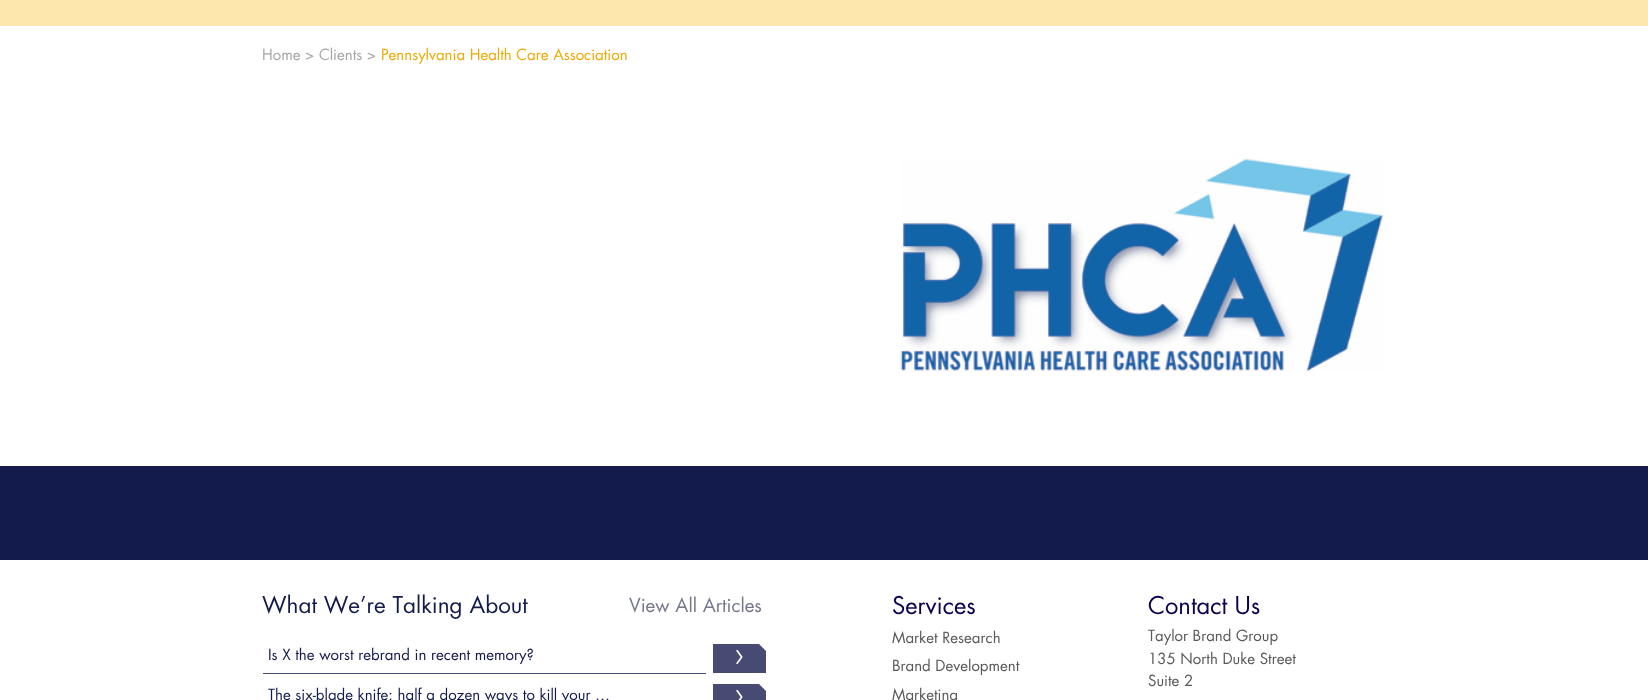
<svg xmlns="http://www.w3.org/2000/svg" width="1648" height="700" viewBox="0 0 1648 700">
  <style>
    .t1 { font: 15px Futura; fill: #a5a5a5; }
    .t2 { font: 15px Futura; fill: #eda900; }
    .t3 { font: 22.5px Futura; fill: #131b4d; }
    .t4 { font: 18.75px Futura; fill: #75778d; }
    .t5 { font: 15px Futura; fill: #131b4d; }
    .t6 { font: 23.75px Futura; fill: #0e004e; }
    .t7 { font: 15px Futura; fill: #595959; }
  </style>
  <rect width="100%" height="100%" fill="#fff"/>
  <rect x="0" y="0" width="1648" height="26" fill="#fee7ac"/>
  <text x="262" y="60" class="t1">Home &gt; Clients &gt;</text>
  <text x="381" y="60" class="t2">Pennsylvania Health Care Association</text>
  <image x="900" y="158" width="483" height="214" href="images/1.png"/>
  <rect x="0" y="466" width="1648" height="94" fill="#131b4d"/>
  <text x="262" y="613" class="t3">What We're Talking About</text>
  <text x="629" y="612" class="t4">View All Articles</text>
  <rect x="263" y="673" width="443" height="1" fill="#474b73"/>
  <text x="268" y="660" class="t5">Is X the worst rebrand in recent memory?</text>
  <rect x="713" y="644" width="46" height="29" fill="#474b73"/>
  <image x="736" y="649" width="7" height="16" href="images/2.png"/>
  <rect x="759" y="665" width="7" height="8" fill="#474b73"/>
  <path d="M759 672.5V644L766 651V665Z" fill="#474b73"/>
  <text x="268" y="700" class="t5">The six-blade knife: half a dozen ways to kill your …</text>
  <rect x="713" y="684" width="46" height="16" fill="#474b73"/>
  <image x="736" y="689" width="7" height="11" href="images/3.png"/>
  <path d="M759 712.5V684L766 691V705Z" fill="#474b73"/>
  <text x="892" y="614" class="t6">Services</text>
  <text x="892" y="643" class="t7">Market Research</text>
  <text x="892" y="671" class="t7">Brand Development</text>
  <text x="892" y="700" class="t7">Marketing</text>
  <text x="1148" y="614" class="t6">Contact Us</text>
  <text x="1148" y="641" class="t7">Taylor Brand Group</text>
  <text x="1148" y="664" class="t7">135 North Duke Street</text>
  <text x="1148" y="686" class="t7">Suite 2</text>
</svg>
